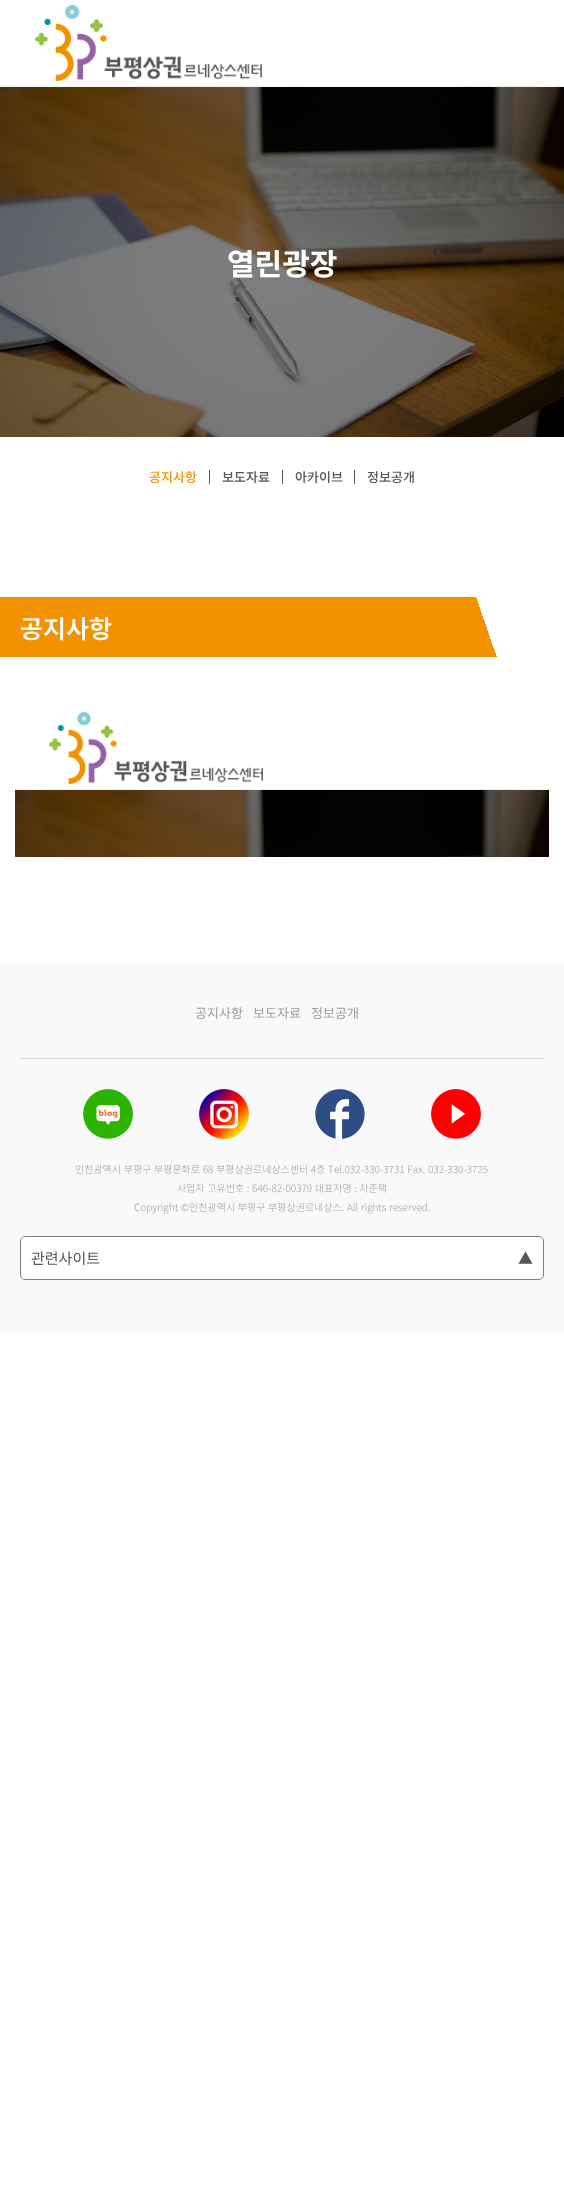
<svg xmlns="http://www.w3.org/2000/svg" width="564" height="2206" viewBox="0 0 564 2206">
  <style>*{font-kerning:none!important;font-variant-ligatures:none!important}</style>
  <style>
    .t1 { font: bold 30px Noto Sans KR; fill: #fff; }
    .t2 { font: 500 13px Noto Sans KR; fill: #f39200; }
    .t3 { font: 500 13px Noto Sans KR; fill: #575756; }
    .t4 { font: 600 25px Noto Sans KR; fill: #fff; }
    .t5 { font: 13px Noto Sans KR; fill: #9c9c9c; }
    .t6 { font: 300 10px Noto Sans KR; fill: #9c9c9c; }
    .t7 { font: 15px Noto Sans KR; fill: #575756; }
  </style>
  <defs>
    <linearGradient id="g1" gradientUnits="userSpaceOnUse" x1="543" y1="537" x2="21" y2="717"><stop offset="0.15" stop-color="#fff"/><stop offset="0.15" stop-color="#f39200"/></linearGradient>
  </defs>
  <rect width="100%" height="100%" fill="#fff"/>
  <rect x="0" y="86" width="564" height="1" fill="#f2f2f2"/>
  <image x="35" y="5" width="227" height="76" href="images/1.png"/>
  <image x="0" y="87" width="564" height="350" href="images/2.png"/>
  <text x="227" y="275" class="t1">열린광장</text>
  <text x="149" y="482" class="t2">공지사항</text>
  <rect x="209" y="470" width="1" height="14" fill="#575756"/>
  <text x="222" y="482" class="t3">보도자료</text>
  <rect x="282" y="470" width="1" height="14" fill="#575756"/>
  <text x="295" y="482" class="t3">아카이브</text>
  <rect x="354" y="470" width="1" height="14" fill="#575756"/>
  <text x="367" y="482" class="t3">정보공개</text>
  <rect x="0" y="597" width="497" height="60" fill="url(#g1)"/>
  <text x="20" y="638" class="t4">공지사항</text>
  <image x="15" y="712" width="534" height="145" href="images/3.png"/>
  <rect x="0" y="963" width="564" height="372" fill="#f9f9f9"/>
  <rect x="20" y="1058" width="524" height="1" fill="#d5d5d5"/>
  <text x="195" y="1018" class="t5">공지사항</text>
  <text x="253" y="1018" class="t5">보도자료</text>
  <text x="311" y="1018" class="t5">정보공개</text>
  <image x="83" y="1089" width="50" height="50" href="images/4.png"/>
  <image x="199" y="1089" width="50" height="50" href="images/5.png"/>
  <image x="315" y="1089" width="50" height="50" href="images/6.png"/>
  <image x="431" y="1089" width="50" height="50" href="images/7.png"/>
  <text x="75" y="1173" word-spacing="0.5" class="t6">인천광역시 부평구 부평문화로 68 부평상권르네상스센터 4층 Tel.032-330-3731 Fax. 032-330-3725</text>
  <text x="177" y="1192" word-spacing="0.5" class="t6">사업자 고유번호 : 646-82-00379 대표자명 : 차준택</text>
  <text x="134" y="1211" word-spacing="0.5" class="t6">Copyright ©인천광역시 부평구 부평상권르네상스. All rights reserved.</text>
  <rect x="20.5" y="1236.5" width="523" height="43" rx="4.5" fill="#fff" stroke="#808080"/>
  <text x="31" y="1264" class="t7">관련사이트</text>
  <text x="518" y="1264" class="t7">▲</text>
</svg>
